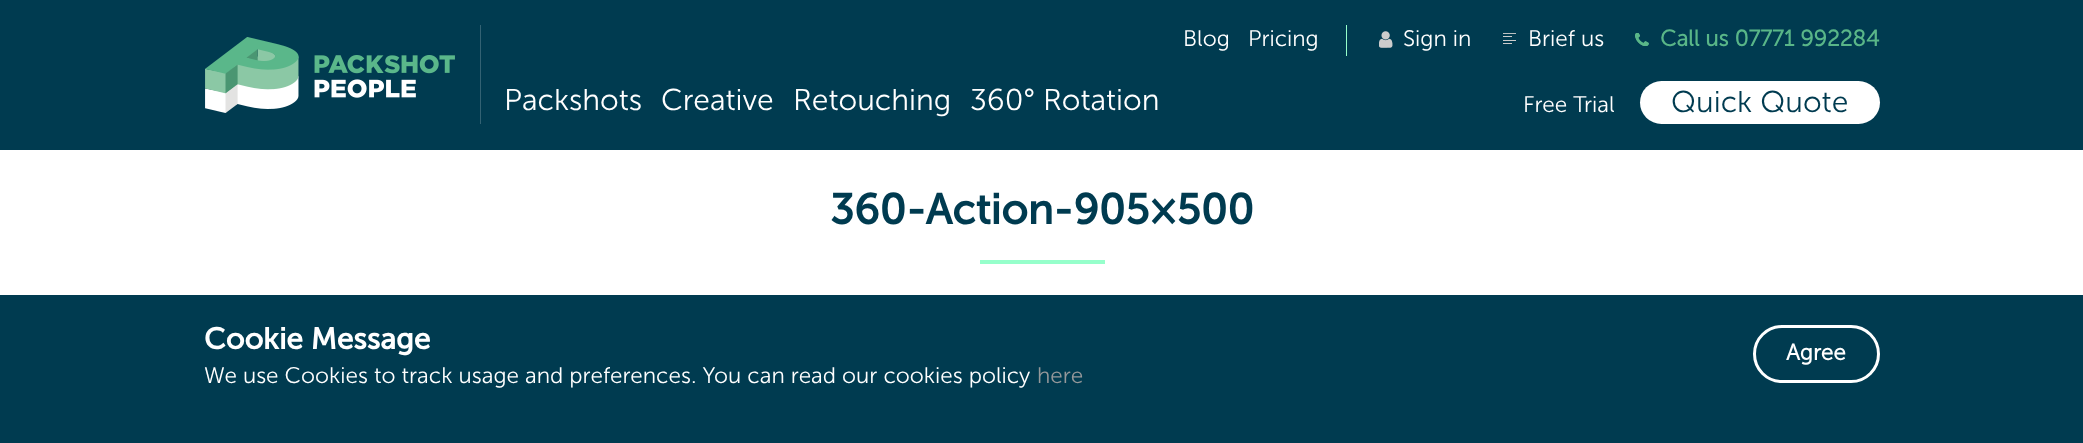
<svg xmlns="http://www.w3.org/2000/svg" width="2083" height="443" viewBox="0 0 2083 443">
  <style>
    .t1 { font: 22.5px 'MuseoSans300'; fill: #fff; }
    .t2 { font: bold 22.5px 'MuseoSans300'; fill: #59b688; }
    .t3 { font: 30px 'MuseoSans300'; fill: #fff; }
    .t4 { font: 30px 'MuseoSans300'; fill: #003b50; }
    .t5 { font: bold 42.5px 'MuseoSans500'; fill: #003b50; }
    .t6 { font: bold 30px 'MuseoSans500'; fill: #fff; }
    .t7 { font: 22.5px 'MuseoSans300'; fill: #95989a; }
    .t8 { font: bold 22.5px 'MuseoSans300'; fill: #fff; }
  </style>
  <rect width="100%" height="100%" fill="#fff"/>
  <rect x="0" y="0" width="2083" height="150" fill="#003b50"/>
  <image x="205" y="37" width="250" height="76" href="images/1.png"/>
  <rect x="480" y="25" width="1" height="99" fill="#336273"/>
  <text x="1183" y="46" class="t1">Blog</text>
  <rect x="1346" y="25" width="1" height="31" fill="#96ffcb"/>
  <text x="1248" y="46" class="t1">Pricing</text>
  <image x="1379" y="31" width="14" height="17" href="images/2.png"/>
  <text x="1403" y="46" class="t1">Sign in</text>
  <image x="1503" y="33" width="13" height="11" href="images/3.png"/>
  <text x="1528" y="46" class="t1">Brief us</text>
  <image x="1635" y="33" width="14" height="13" href="images/4.png"/>
  <text x="1660" y="46" class="t2">Call us 07771 992284</text>
  <text x="504" y="110" class="t3">Packshots</text>
  <text x="661" y="110" class="t3">Creative</text>
  <text x="793" y="110" class="t3">Retouching</text>
  <text x="970" y="110" class="t3">360° Rotation</text>
  <text x="1523" y="112" class="t1">Free Trial</text>
  <rect x="1640" y="81" width="240" height="43" rx="21.5" fill="#fff"/>
  <text x="1671" y="112" class="t4">Quick Quote</text>
  <text x="830" y="224" class="t5">360-Action-905×500</text>
  <rect x="980" y="260" width="125" height="4" fill="#96ffcb"/>
  <rect x="0" y="295" width="2083" height="148" fill="#003b50"/>
  <text x="204" y="349" class="t6">Cookie Message</text>
  <text x="204" y="383" class="t1">We use Cookies to track usage and preferences. You can read our cookies policy</text>
  <text x="1037" y="383" class="t7">here</text>
  <rect x="1754.5" y="326.5" width="124" height="55" rx="27.5" fill="none" stroke="#fff" stroke-width="3"/>
  <text x="1786" y="360" class="t8">Agree</text>
</svg>
